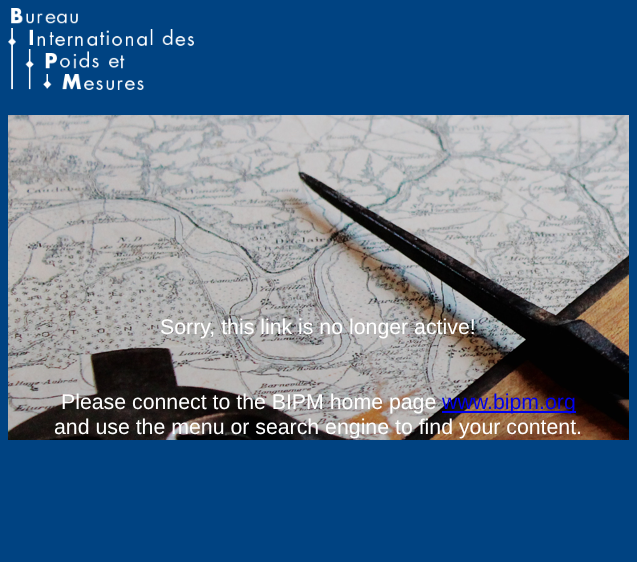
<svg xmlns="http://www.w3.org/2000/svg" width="637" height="562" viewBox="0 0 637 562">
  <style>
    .t1 { font: 21.3px Liberation Sans; fill: #fff; }
    .t2 { font: 21.3px Liberation Sans; fill: #00e; }
  </style>
  <rect width="100%" height="100%" fill="#004382"/>
  <image x="8" y="8" width="186" height="82" href="images/1.png"/>
  <image x="8" y="115" width="621" height="325" href="images/2.png"/>
  <text x="160" y="334" class="t1">Sorry, this link is no longer active!</text>
  <text x="61" y="409" class="t1">Please connect to the BIPM home page</text>
  <rect x="442" y="411" width="134" height="2" fill="#00e"/>
  <text x="442" y="409" class="t2">www.bipm.org</text>
  <text x="54" y="434" class="t1">and use the menu or search engine to find your content.</text>
</svg>
